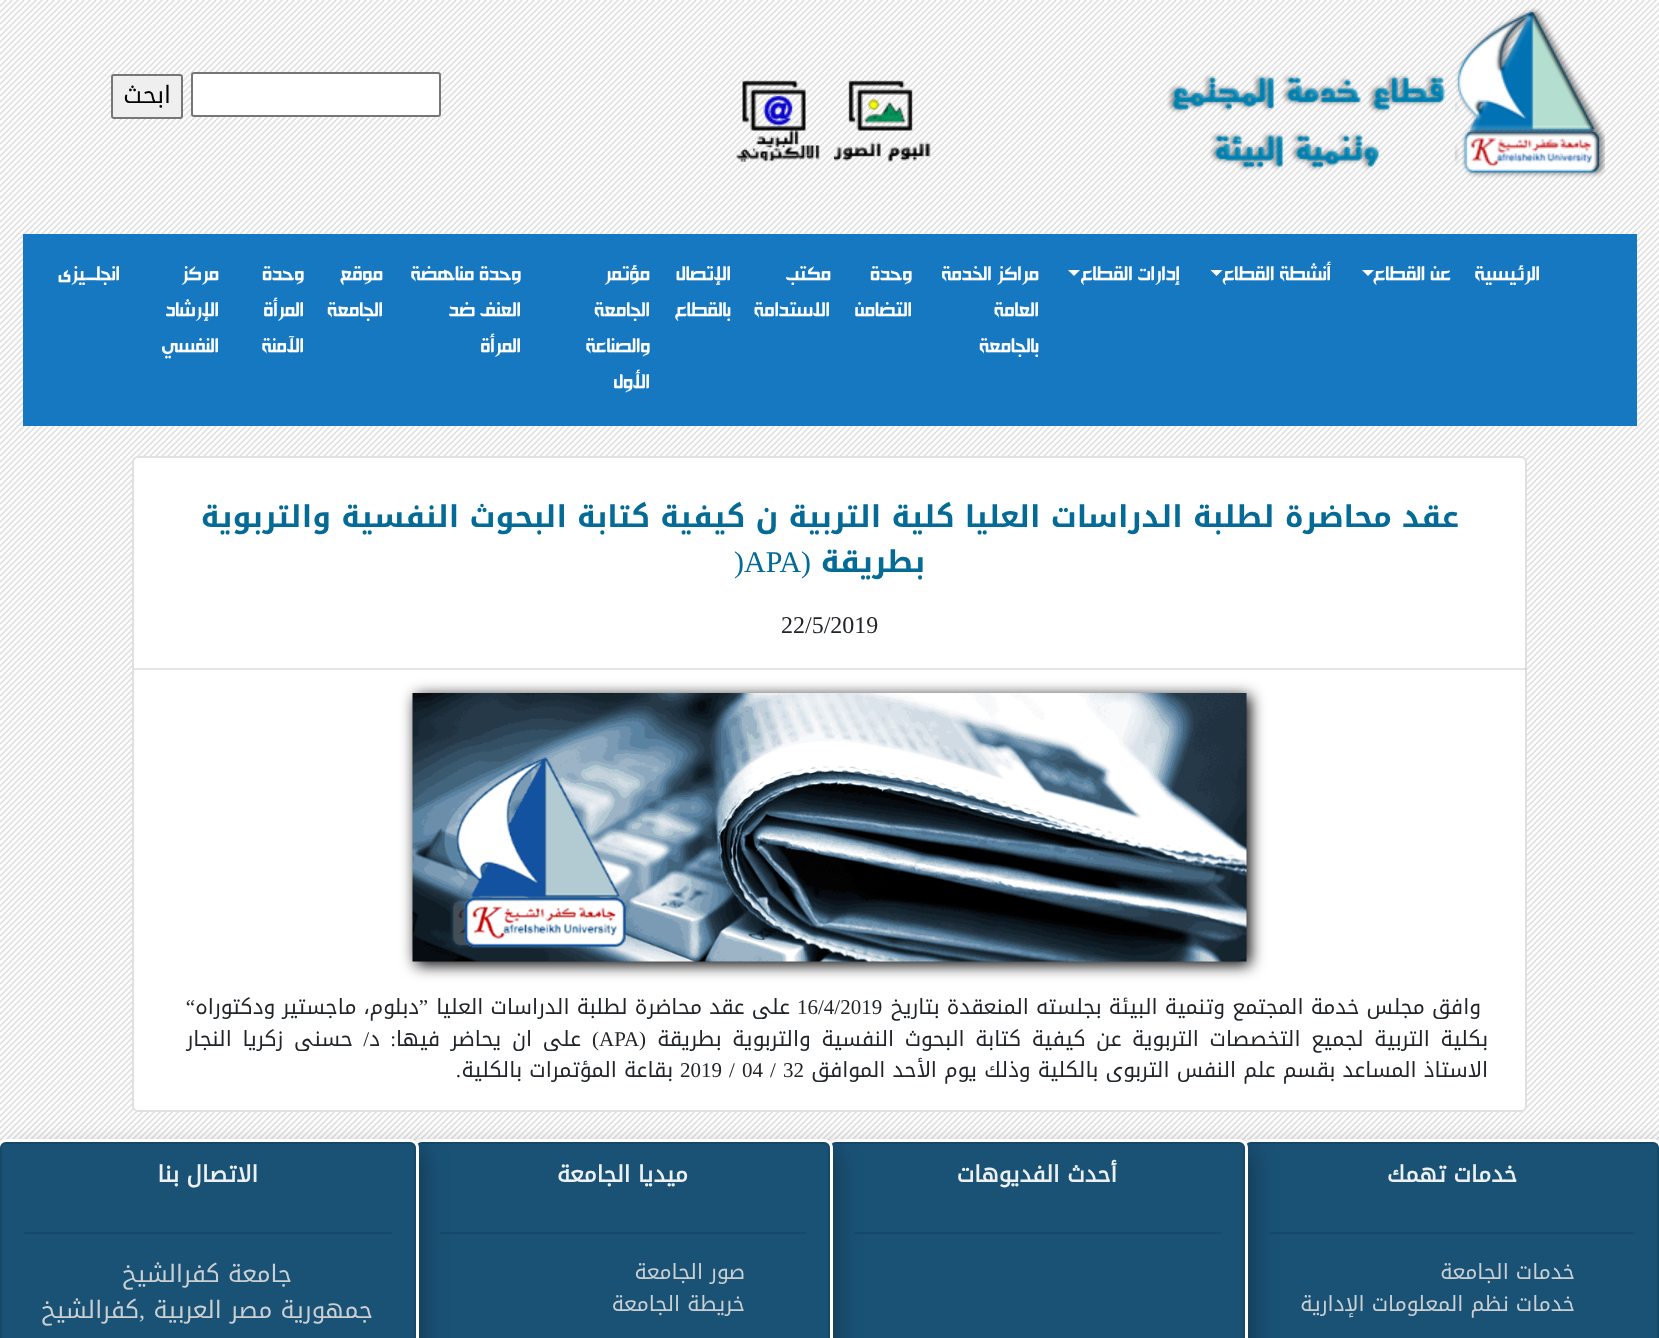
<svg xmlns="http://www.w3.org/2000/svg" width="1659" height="1338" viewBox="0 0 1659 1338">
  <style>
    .t1 { font: 24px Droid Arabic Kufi; direction: rtl; fill: #000; }
    .t2 { font: 24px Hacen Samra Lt; direction: rtl; fill: #fff; }
    .t3 { font: bold 30px Droid Arabic Kufi; direction: rtl; fill: #046a96; }
    .t4 { font: 30px Liberation Serif; direction: rtl; fill: #046a96; }
    .t5 { font: 30px Liberation Serif; fill: #046a96; }
    .t6 { font: 24px Liberation Serif; fill: #212529; }
    .t7 { font: 21px Droid Arabic Kufi; direction: rtl; fill: #212529; }
    .t8 { font: 21px Liberation Serif; fill: #212529; }
    .t9 { font: 21px Liberation Serif; direction: rtl; fill: #212529; }
    .t10 { font: bold 22.5px 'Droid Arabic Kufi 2'; direction: rtl; fill: #ecf0f1; }
    .t11 { font: 21px Droid Arabic Kufi; direction: rtl; fill: #cacfd2; }
    .t12 { font: 24px Droid Arabic Kufi; direction: rtl; fill: #cacfd2; }
    .t13 { font: 24px Liberation Serif; direction: rtl; fill: #cacfd2; }
  </style>
  <rect width="100%" height="100%" fill="#fff"/>
  <image x="0" y="0" width="1659" height="1148" href="images/1.png"/>
  <image x="1167" y="7" width="438" height="171" href="images/2.png"/>
  <image x="834" y="80" width="97" height="82" href="images/3.png"/>
  <image x="736" y="80" width="84" height="82" href="images/4.png"/>
  <rect x="192" y="73" width="248" height="43" rx="2" fill="#fff" stroke="#767676" stroke-width="2"/>
  <rect x="112" y="75" width="70" height="43" rx="2" fill="#efefef" stroke="#767676" stroke-width="2"/>
  <text x="171" y="103" class="t1">ابحث</text>
  <rect x="23" y="234" width="1614" height="192" fill="#1778c2"/>
  <text x="1540" y="282" class="t2">الرئيسية</text>
  <text x="1451" y="282" class="t2">عن القطاع</text>
  <path d="M1362 270H1374L1368 276Z" fill="#fff"/>
  <text x="1331" y="282" class="t2">أنشطة القطاع</text>
  <path d="M1210.5 270H1222.5L1216.5 276Z" fill="#fff"/>
  <text x="1180" y="282" class="t2">إدارات القطاع</text>
  <path d="M1068 270H1080L1074 276Z" fill="#fff"/>
  <text x="1039" y="282" class="t2">مراكز الخدمة</text>
  <text x="1039" y="318" class="t2">العامة</text>
  <text x="1039" y="354" class="t2">بالجامعة</text>
  <text x="912" y="282" class="t2">وحدة</text>
  <text x="912" y="318" class="t2">التضامن</text>
  <text x="831" y="282" class="t2">مكتب</text>
  <text x="830" y="318" class="t2">الاستدامة</text>
  <text x="731" y="282" class="t2">الإتصال</text>
  <text x="731" y="318" class="t2">بالقطاع</text>
  <text x="650" y="282" class="t2">مؤتمر</text>
  <text x="650" y="318" class="t2">الجامعة</text>
  <text x="650" y="354" class="t2">والصناعة</text>
  <text x="650" y="390" class="t2">الأول</text>
  <text x="521" y="282" class="t2">وحدة مناهضة</text>
  <text x="521" y="318" class="t2">العنف ضد</text>
  <text x="521" y="354" class="t2">المرأة</text>
  <text x="383" y="282" class="t2">موقع</text>
  <text x="383" y="318" class="t2">الجامعة</text>
  <text x="304" y="282" class="t2">وحدة</text>
  <text x="304" y="318" class="t2">المرأة</text>
  <text x="304" y="354" class="t2">الآمنة</text>
  <text x="219" y="282" class="t2">مركز</text>
  <text x="219" y="318" class="t2">الإرشاد</text>
  <text x="219" y="354" class="t2">النفسي</text>
  <text x="120" y="282" class="t2">انجلــيزى</text>
  <rect x="132" y="456" width="1395" height="656" rx="6" fill="#fff"/>
  <rect x="133" y="457" width="1393" height="654" rx="5" fill="none" stroke="#0000001f" stroke-width="2"/>
  <text x="1459" y="527" class="t3">عقد محاضرة لطلبة الدراسات العليا كلية التربية ن كيفية كتابة البحوث النفسية والتربوية</text>
  <text x="925" y="572" class="t3">بطريقة</text>
  <text x="811" y="572" class="t4">(</text>
  <text x="734" y="572" class="t5">)APA</text>
  <text x="781" y="633" class="t6">22/5/2019</text>
  <rect x="134" y="668" width="1392" height="2" fill="#0000001a"/>
  <rect x="416" y="696" width="834" height="269" fill="#000" filter="blur(7.5px)"/>
  <image x="412" y="693" width="835" height="269" href="images/5.png"/>
  <text x="1481" y="1014" class="t7">وافق مجلس خدمة المجتمع وتنمية البيئة بجلسته المنعقدة بتاريخ</text>
  <text x="797" y="1014" class="t8">16/4/2019</text>
  <text x="790" y="1014" class="t7">على عقد محاضرة لطلبة الدراسات العليا</text>
  <text x="428" y="1014" class="t9">”</text>
  <text x="419" y="1014" class="t7">دبلوم، ماجستير ودكتوراه</text>
  <text x="195" y="1014" class="t9">“</text>
  <text x="1488" y="1046" word-spacing="3.5" class="t7">بكلية التربية لجميع التخصصات التربوية عن كيفية كتابة البحوث النفسية والتربوية بطريقة</text>
  <text x="646" y="1046" class="t9">(</text>
  <text x="599" y="1046" class="t8">APA</text>
  <text x="599" y="1046" class="t9">)</text>
  <text x="581" y="1046" word-spacing="3.5" class="t7">على ان يحاضر فيها</text>
  <text x="396" y="1046" class="t9">:</text>
  <text x="380" y="1046" class="t7">د</text>
  <text x="369" y="1046" class="t9">/</text>
  <text x="353" y="1046" word-spacing="3.5" class="t7">حسنى زكريا النجار</text>
  <text x="1488" y="1077" class="t7">الاستاذ المساعد بقسم علم النفس التربوى بالكلية وذلك يوم الأحد الموافق</text>
  <text x="783" y="1077" class="t8">32</text>
  <text x="770" y="1077" class="t8">/</text>
  <text x="742" y="1077" class="t8">04</text>
  <text x="729" y="1077" class="t8">/</text>
  <text x="680" y="1077" class="t8">2019</text>
  <text x="673" y="1077" class="t7">بقاعة المؤتمرات بالكلية</text>
  <text x="461" y="1077" class="t9">.</text>
  <rect x="1253" y="1149" width="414" height="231" rx="6" fill="#0000004d" filter="blur(12px)"/>
  <rect x="1243.5" y="1140.5" width="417" height="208" rx="7.5" fill="none" stroke="#fff" stroke-width="3"/>
  <rect x="1245" y="1142" width="414" height="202" rx="6" fill="#1a5276"/>
  <rect x="1246" y="1143" width="412" height="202" rx="5" fill="none" stroke="#0000001f" stroke-width="2"/>
  <text x="1517" y="1182" class="t10">خدمات تهمك</text>
  <rect x="1269" y="1232" width="366" height="2" fill="#174a6a"/>
  <text x="1575" y="1279" class="t11">خدمات الجامعة</text>
  <text x="1575" y="1311" class="t11">خدمات نظم المعلومات الإدارية</text>
  <rect x="837" y="1149" width="416" height="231" rx="6" fill="#0000004d" filter="blur(12px)"/>
  <rect x="828.5" y="1140.5" width="418" height="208" rx="7.5" fill="none" stroke="#fff" stroke-width="3"/>
  <rect x="830" y="1142" width="415" height="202" rx="6" fill="#1a5276"/>
  <rect x="831" y="1143" width="413" height="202" rx="5" fill="none" stroke="#0000001f" stroke-width="2"/>
  <text x="1117" y="1182" class="t10">أحدث الفديوهات</text>
  <rect x="854" y="1232" width="367" height="2" fill="#174a6a"/>
  <rect x="423" y="1149" width="414" height="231" rx="6" fill="#0000004d" filter="blur(12px)"/>
  <rect x="414.5" y="1140.5" width="417" height="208" rx="7.5" fill="none" stroke="#fff" stroke-width="3"/>
  <rect x="416" y="1142" width="414" height="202" rx="6" fill="#1a5276"/>
  <rect x="417" y="1143" width="412" height="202" rx="5" fill="none" stroke="#0000001f" stroke-width="2"/>
  <text x="688" y="1182" class="t10">ميديا الجامعة</text>
  <rect x="440" y="1232" width="366" height="2" fill="#174a6a"/>
  <text x="745" y="1279" class="t11">صور الجامعة</text>
  <text x="745" y="1311" class="t11">خريطة الجامعة</text>
  <rect x="8" y="1149" width="415" height="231" rx="6" fill="#0000004d" filter="blur(12px)"/>
  <rect x="-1.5" y="1140.5" width="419" height="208" rx="7.5" fill="none" stroke="#fff" stroke-width="3"/>
  <rect x="0" y="1142" width="416" height="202" rx="6" fill="#1a5276"/>
  <rect x="1" y="1143" width="414" height="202" rx="5" fill="none" stroke="#0000001f" stroke-width="2"/>
  <text x="258" y="1182" class="t10">الاتصال بنا</text>
  <rect x="24" y="1232" width="368" height="2" fill="#174a6a"/>
  <text x="292" y="1282" class="t12">جامعة كفرالشيخ</text>
  <text x="373" y="1318" class="t12">جمهورية مصر العربية</text>
  <text x="145" y="1318" class="t13">,</text>
  <text x="139" y="1318" class="t12">كفرالشيخ</text>
</svg>
